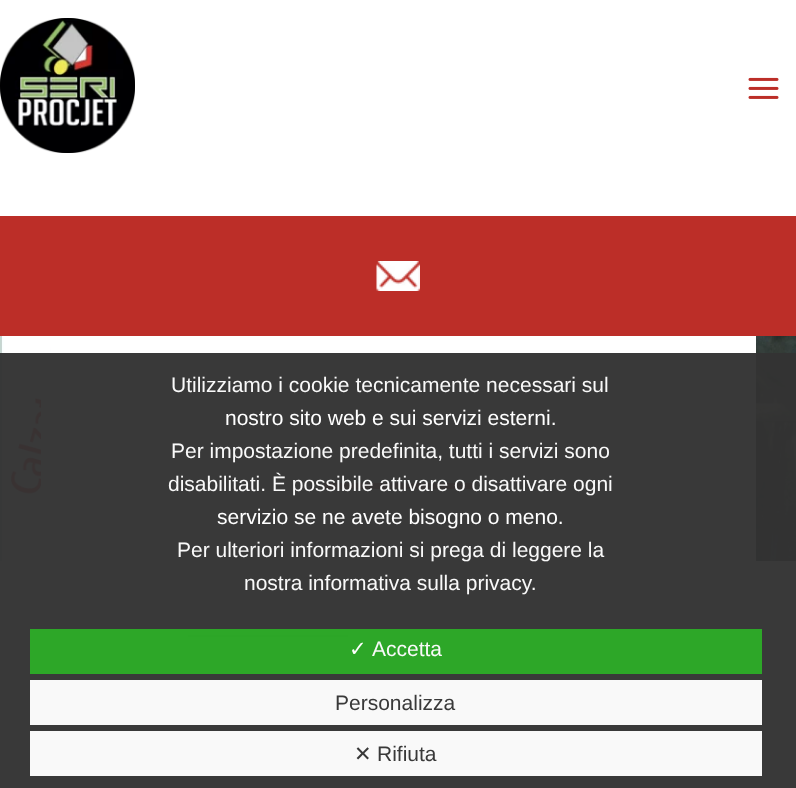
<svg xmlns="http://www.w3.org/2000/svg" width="796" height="788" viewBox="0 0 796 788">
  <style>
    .t1 { font: 21px Liberation Sans; fill: #f9f9f9; }
    .t2 { font: 21px Liberation Sans; fill: #fff; }
    .t3 { font: 21px DejaVu Sans; fill: #fff; }
    .t4 { font: 21px Liberation Sans; fill: #393939; }
    .t5 { font: 21px DejaVu Sans; fill: #393939; }
  </style>
  <rect width="100%" height="100%" fill="#fff"/>
  <rect x="0" y="561" width="796" height="227" fill="#393939"/>
  <image x="0" y="18" width="135" height="135" href="images/1.png"/>
  <image x="748" y="77" width="31" height="22" href="images/2.png"/>
  <rect x="0" y="216" width="796" height="120" fill="#bc2e28"/>
  <image x="376" y="261" width="44" height="30" href="images/3.png"/>
  <image x="0" y="336" width="796" height="225" href="images/4.png"/>
  <rect x="51" y="336" width="705" height="17" fill="#fff"/>
  <rect x="41" y="353" width="715" height="208" fill="#393939"/>
  <rect x="324" y="483" width="149" height="6" fill="#373333"/>
  <rect x="188" y="635" width="160" height="2" fill="#323232"/>
  <text x="171" y="392" class="t1">Utilizziamo i cookie tecnicamente necessari sul</text>
  <text x="225" y="425" class="t2">nostro sito web e sui servizi esterni.</text>
  <text x="171" y="458" class="t1">Per impostazione predefinita, tutti i servizi sono</text>
  <text x="168" y="491" class="t1">disabilitati. È possibile attivare o disattivare ogni</text>
  <text x="217" y="524" class="t2">servizio se ne avete bisogno o meno.</text>
  <text x="177" y="557" class="t1">Per ulteriori informazioni si prega di leggere la</text>
  <text x="244" y="590" class="t1">nostra informativa sulla privacy.</text>
  <rect x="30" y="629" width="732" height="45" fill="#2caa27f7"/>
  <text x="349" y="656" class="t3">✓</text>
  <text x="372" y="656" class="t1">Accetta</text>
  <rect x="30" y="680" width="732" height="45" fill="#fffffff7"/>
  <text x="335" y="710" class="t4">Personalizza</text>
  <rect x="30" y="731" width="732" height="45" fill="#fffffff7"/>
  <text x="354" y="761" class="t5">✕</text>
  <text x="377" y="761" class="t4">Rifiuta</text>
</svg>
